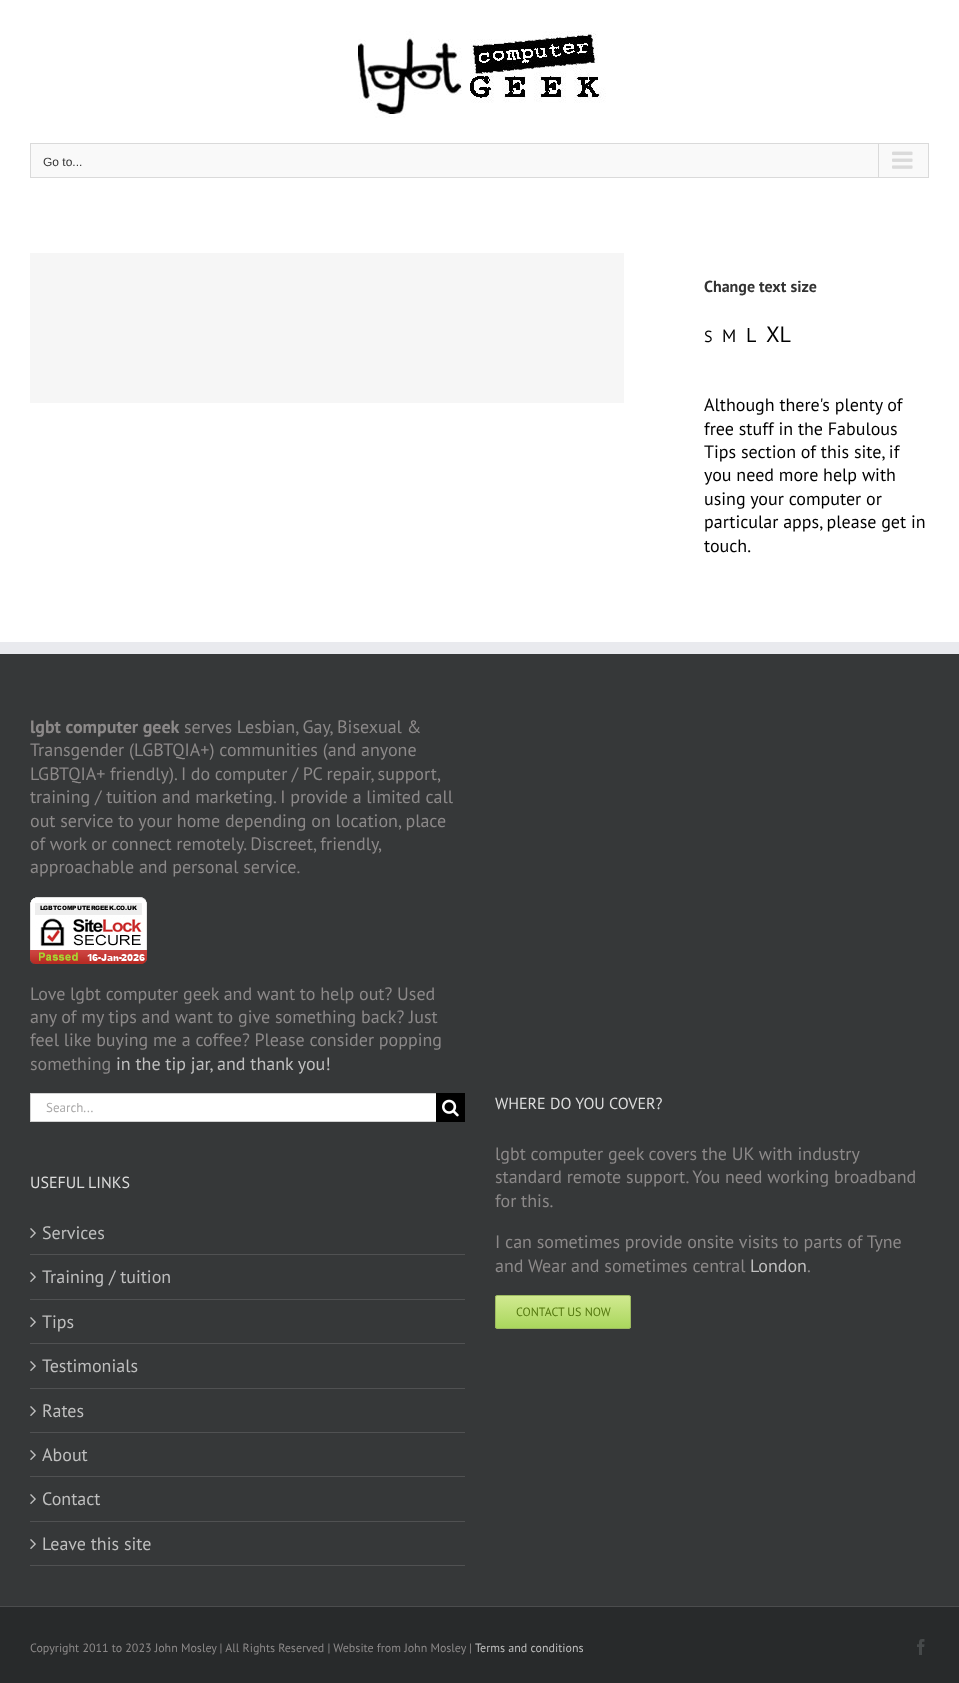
<svg xmlns="http://www.w3.org/2000/svg" width="959" height="1683" viewBox="0 0 959 1683">
  <style>
    .t1 { font: 12px Liberation Sans; fill: #333; }
    .t2 { font: bold 16px PT Sans; fill: #333; }
    .t3 { font: 16px PT Sans; fill: #000; }
    .t4 { font: 18px PT Sans; fill: #000; }
    .t5 { font: 20px PT Sans; fill: #000; }
    .t6 { font: 22px PT Sans; fill: #000; }
    .t7 { font: bold 18px PT Sans; fill: #8c8989; }
    .t8 { font: 18px PT Sans; fill: #8c8989; }
    .t9 { font: 18px PT Sans; fill: #bfbfbf; }
    .t10 { font: 13px PT Sans; fill: #aaa9a9; }
    .t11 { font: 16px PT Sans; fill: #ddd; }
    .t12 { font: 12px PT Sans; fill: #54770f; }
    .t13 { font: 12px PT Sans; fill: #8c8989; }
    .t14 { font: 12px PT Sans; fill: #bfbfbf; }
  </style>
  <defs>
    <clipPath id="clip1"><rect x="495" y="1295" width="136" height="34" rx="2"/></clipPath>
    <linearGradient id="g1" gradientUnits="userSpaceOnUse" x1="563" y1="1328" x2="563" y2="1296"><stop offset="0" stop-color="#aad75d"/><stop offset="1" stop-color="#d1e990"/></linearGradient>
  </defs>
  <rect width="100%" height="100%" fill="#fff"/>
  <image x="358" y="31" width="248" height="87" href="images/1.png"/>
  <rect x="30.5" y="143.5" width="898" height="34" fill="#f9f9f9" stroke="#dadada"/>
  <text x="43" y="166" class="t1">Go to...</text>
  <rect x="878" y="144" width="1" height="33" fill="#dadada"/>
  <image x="892" y="151" width="21" height="18" href="images/2.png"/>
  <rect x="30" y="253" width="594" height="150" fill="#f6f6f6"/>
  <text x="704" y="292" class="t2">Change text size</text>
  <text x="704" y="342" class="t3">S</text>
  <text x="722" y="342" class="t4">M</text>
  <text x="746" y="342" class="t5">L</text>
  <text x="766" y="342" class="t6">XL</text>
  <text x="704" y="411" class="t4">Although there's plenty of</text>
  <text x="704" y="435" class="t4">free stuff in the Fabulous</text>
  <text x="704" y="458" class="t4">Tips section of this site, if</text>
  <text x="704" y="481" class="t4">you need more help with</text>
  <text x="704" y="505" class="t4">using your computer or</text>
  <text x="704" y="528" class="t4">particular apps, please get in</text>
  <text x="704" y="552" class="t4">touch.</text>
  <rect x="0" y="654" width="959" height="952" fill="#363839"/>
  <rect x="0" y="642" width="959" height="12" fill="#e9eaee"/>
  <text x="30" y="733" class="t7">lgbt computer geek</text>
  <text x="184" y="733" class="t8">serves Lesbian, Gay, Bisexual &amp;</text>
  <text x="30" y="756" class="t8">Transgender (LGBTQIA+) communities (and anyone</text>
  <text x="30" y="780" word-spacing="-0.25" class="t8">LGBTQIA+ friendly). I do computer / PC repair, support,</text>
  <text x="30" y="803" class="t8">training / tuition and marketing. I provide a limited call</text>
  <text x="30" y="827" class="t8">out service to your home depending on location, place</text>
  <text x="30" y="850" word-spacing="-0.25" class="t8">of work or connect remotely. Discreet, friendly,</text>
  <text x="30" y="873" class="t8">approachable and personal service.</text>
  <image x="30" y="897" width="117" height="67" href="images/3.png"/>
  <text x="30" y="1000" class="t8">Love lgbt computer geek and want to help out? Used</text>
  <text x="30" y="1023" class="t8">any of my tips and want to give something back? Just</text>
  <text x="30" y="1046" class="t8">feel like buying me a coffee? Please consider popping</text>
  <text x="30" y="1070" class="t8">something</text>
  <text x="116" y="1070" class="t9">in the tip jar, and thank you!</text>
  <rect x="31" y="1094" width="405" height="27" fill="#fff"/>
  <rect x="30" y="1093" width="406" height="1" fill="#d2d2d2"/>
  <rect x="30" y="1121" width="406" height="1" fill="#d2d2d2"/>
  <rect x="30" y="1093" width="1" height="29" fill="#d2d2d2"/>
  <text x="46" y="1112" class="t10">Search...</text>
  <rect x="436" y="1093" width="29" height="29" fill="#000"/>
  <image x="442" y="1099" width="17" height="18" href="images/4.png"/>
  <text x="30" y="1188" class="t11">USEFUL LINKS</text>
  <rect x="30" y="1254" width="435" height="1" fill="#505152"/>
  <image x="30" y="1228" width="6" height="10" href="images/5.png"/>
  <text x="42" y="1239" class="t9">Services</text>
  <rect x="30" y="1299" width="435" height="1" fill="#505152"/>
  <image x="30" y="1272" width="6" height="10" href="images/5.png"/>
  <text x="42" y="1283" class="t9">Training / tuition</text>
  <rect x="30" y="1343" width="435" height="1" fill="#505152"/>
  <image x="30" y="1317" width="6" height="10" href="images/5.png"/>
  <text x="42" y="1328" class="t9">Tips</text>
  <rect x="30" y="1388" width="435" height="1" fill="#505152"/>
  <image x="30" y="1361" width="6" height="10" href="images/5.png"/>
  <text x="42" y="1372" class="t9">Testimonials</text>
  <rect x="30" y="1432" width="435" height="1" fill="#505152"/>
  <image x="30" y="1406" width="6" height="10" href="images/5.png"/>
  <text x="42" y="1417" class="t9">Rates</text>
  <rect x="30" y="1476" width="435" height="1" fill="#505152"/>
  <image x="30" y="1450" width="6" height="10" href="images/5.png"/>
  <text x="42" y="1461" class="t9">About</text>
  <rect x="30" y="1521" width="435" height="1" fill="#505152"/>
  <image x="30" y="1494" width="6" height="10" href="images/5.png"/>
  <text x="42" y="1505" class="t9">Contact</text>
  <rect x="30" y="1565" width="435" height="1" fill="#505152"/>
  <image x="30" y="1539" width="6" height="10" href="images/5.png"/>
  <text x="42" y="1550" class="t9">Leave this site</text>
  <text x="495" y="1109" class="t11">WHERE DO YOU COVER?</text>
  <text x="495" y="1160" class="t8">lgbt computer geek covers the UK with industry</text>
  <text x="495" y="1183" class="t8">standard remote support. You need working broadband</text>
  <text x="495" y="1207" class="t8">for this.</text>
  <text x="495" y="1248" class="t8">I can sometimes provide onsite visits to parts of Tyne</text>
  <text x="495" y="1272" class="t8">and Wear and sometimes central</text>
  <text x="750" y="1272" class="t9">London</text>
  <text x="807" y="1272" class="t8">.</text>
  <g clip-path="url(#clip1)">
    <rect x="495" y="1296" width="136" height="32" fill="url(#g1)"/>
  </g>
  <rect x="495.5" y="1295.5" width="135" height="33" rx="1.5" fill="none" stroke="#9dba60"/>
  <text x="516" y="1316" class="t12">CONTACT US NOW</text>
  <rect x="0" y="1607" width="959" height="76" fill="#282a2b"/>
  <rect x="0" y="1606" width="959" height="1" fill="#4b4c4d"/>
  <text x="30" y="1652" class="t13">Copyright 2011 to 2023 John Mosley | All Rights Reserved | Website from John Mosley |</text>
  <text x="475" y="1652" class="t14">Terms and conditions</text>
  <image x="917" y="1639" width="8" height="16" href="images/6.png"/>
</svg>
